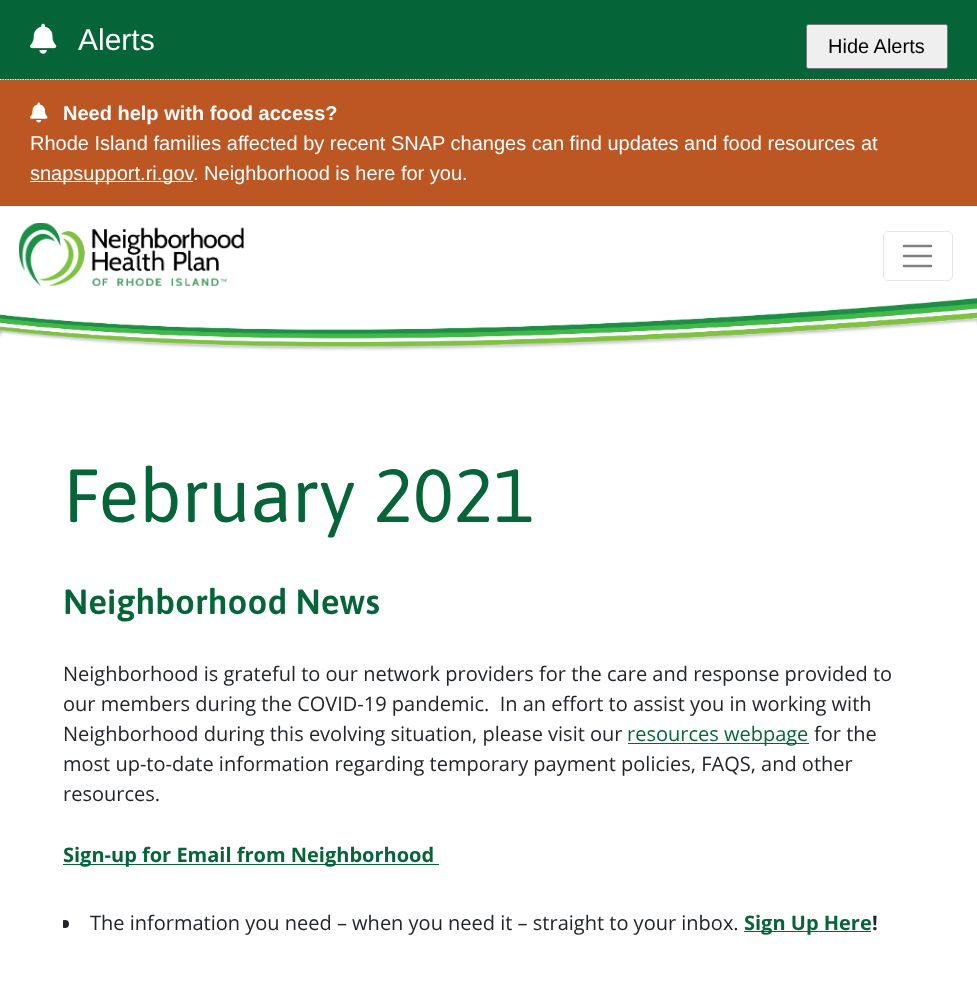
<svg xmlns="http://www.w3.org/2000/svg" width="977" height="1002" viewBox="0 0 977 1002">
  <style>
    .t1 { font: 30px Liberation Sans; fill: #fff; }
    .t2 { font: 20px Liberation Sans; fill: #000; }
    .t3 { font: bold 20px Liberation Sans; fill: #fff; }
    .t4 { font: 20px Liberation Sans; fill: #fff; }
    .t5 { font: 75px Asap; fill: #056538; }
    .t6 { font: 600 35px Asap; fill: #056538; }
    .t7 { font: 20px Open Sans; fill: #212529; }
    .t8 { font: 20px Open Sans; fill: #056538; }
    .t9 { font: bold 20px Open Sans; fill: #056538; }
    .t10 { font: bold 20px Open Sans; fill: #212529; }
  </style>
  <defs>
    <clipPath id="clip1"><rect x="63" y="380" width="852" height="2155"/></clipPath>
  </defs>
  <rect width="100%" height="100%" fill="#fff"/>
  <rect x="0" y="0" width="977" height="79" fill="#056538"/>
  <image x="30" y="23" width="27" height="31" href="images/1.png"/>
  <text x="78" y="50" class="t1">Alerts</text>
  <rect x="806.5" y="24.5" width="141" height="44" rx="2" fill="#efefef" stroke="#767676"/>
  <text x="828" y="53" class="t2">Hide Alerts</text>
  <rect x="0" y="79" width="977" height="127" fill="#bc5724"/>
  <path d="M0 79.5H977.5" fill="none" stroke="#fff" stroke-width="1.2" stroke-dasharray="1.25 1.25"/>
  <image x="30" y="102" width="18" height="21" href="images/2.png"/>
  <text x="63" y="120" class="t3">Need help with food access?</text>
  <text x="30" y="150" class="t4">Rhode Island families affected by recent SNAP changes can find updates and food resources at</text>
  <rect x="30" y="181" width="163" height="1" fill="#fff"/>
  <text x="30" y="180" class="t4">snapsupport.ri.gov</text>
  <text x="193" y="180" class="t4">. Neighborhood is here for you.</text>
  <image x="19" y="223" width="225" height="63" href="images/3.png"/>
  <rect x="883.5" y="231.5" width="69" height="49" rx="4.5" fill="none" stroke="#e6e6e6"/>
  <path d="M904 246H931M904 256H931M904 266H931" fill="none" stroke="#808080" stroke-width="2.5" stroke-linecap="round"/>
  <image x="0" y="297" width="977" height="54" href="images/4.png"/>
  <text x="63" y="522" class="t5">February 2021</text>
  <text x="63" y="614" class="t6">Neighborhood News</text>
  <text x="63" y="681" class="t7">Neighborhood is grateful to our network providers for the care and response provided to</text>
  <text x="63" y="711" class="t7" xml:space="preserve">our members during the COVID-19 pandemic.  In an effort to assist you in working with</text>
  <text x="63" y="741" class="t7">Neighborhood during this evolving situation, please visit our</text>
  <rect x="628" y="743" width="181" height="1" fill="#056538"/>
  <text x="627" y="741" class="t8">resources webpage</text>
  <text x="814" y="741" class="t7">for the</text>
  <text x="63" y="771" class="t7">most up-to-date information regarding temporary payment policies, FAQS, and other</text>
  <text x="63" y="801" class="t7">resources.</text>
  <rect x="63" y="864" width="376" height="1" fill="#056538"/>
  <text x="63" y="862" class="t9">Sign-up for Email from Neighborhood</text>
  <g clip-path="url(#clip1)">
    <circle cx="65" cy="924" r="4" fill="#212529"/>
  </g>
  <text x="90" y="930" class="t7">The information you need – when you need it – straight to your inbox.</text>
  <rect x="744" y="931" width="127" height="1" fill="#056538"/>
  <text x="744" y="930" class="t9">Sign Up Here</text>
  <text x="872" y="930" class="t10">!</text>
</svg>
